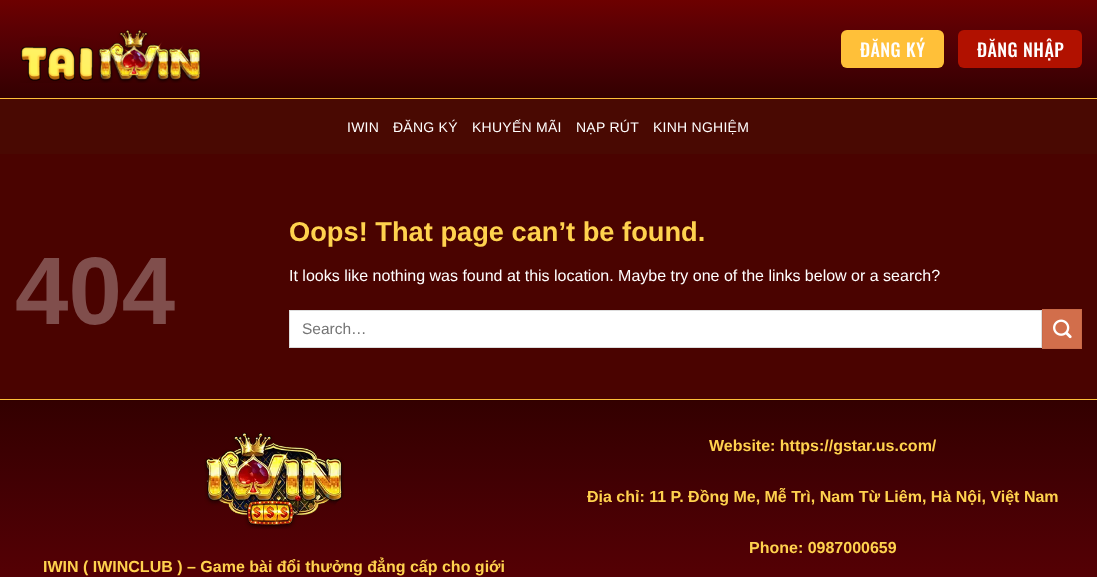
<svg xmlns="http://www.w3.org/2000/svg" width="1097" height="577" viewBox="0 0 1097 577">
  <style>
    .t1 { font: 500 18px Oswald; letter-spacing: 0.5px; fill: #fffefe; }
    .t2 { font: 14px Liberation Sans; letter-spacing: 0.25px; fill: #fffefe; }
    .t3 { font: bold 96px Liberation Sans; fill: #804e4c; }
    .t4 { font: bold 27.25px Liberation Sans; fill: #ffd24e; }
    .t5 { font: 16px Liberation Sans; fill: #fffefe; }
    .t6 { font: 15.5px Liberation Sans; fill: #757575; }
    .t7 { font: bold 16px Liberation Sans; fill: #ffd24e; }
  </style>
  <defs>
    <linearGradient id="g1" gradientUnits="userSpaceOnUse" x1="549" y1="0" x2="549" y2="98"><stop offset="0" stop-color="#6d0000"/><stop offset="0.25" stop-color="#5e0003"/><stop offset="0.5" stop-color="#500004"/><stop offset="0.75" stop-color="#410003"/><stop offset="1" stop-color="#300"/></linearGradient>
    <linearGradient id="g2" gradientUnits="userSpaceOnUse" x1="549" y1="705" x2="549" y2="400"><stop offset="0" stop-color="#6d0000"/><stop offset="0.25" stop-color="#5e0003"/><stop offset="0.5" stop-color="#500004"/><stop offset="0.75" stop-color="#410003"/><stop offset="1" stop-color="#300"/></linearGradient>
  </defs>
  <rect width="100%" height="100%" fill="#4a0300"/>
  <rect x="0" y="0" width="1097" height="98" fill="url(#g1)"/>
  <rect x="0" y="98" width="1097" height="1" fill="#ffc039"/>
  <image x="20" y="29" width="181" height="54" href="images/1.png"/>
  <rect x="841" y="30" width="103" height="38" rx="6" fill="#ffc039"/>
  <text x="860" y="57" class="t1">ĐĂNG KÝ</text>
  <rect x="958" y="30" width="124" height="38" rx="6" fill="#b11100"/>
  <text x="977" y="57" class="t1">ĐĂNG NHẬP</text>
  <rect x="0" y="99" width="1097" height="55" fill="#490902"/>
  <text x="347" y="132" class="t2">IWIN</text>
  <text x="393" y="132" class="t2">ĐĂNG KÝ</text>
  <text x="472" y="132" class="t2">KHUYẾN MÃI</text>
  <text x="576" y="132" class="t2">NẠP RÚT</text>
  <text x="653" y="132" class="t2">KINH NGHIỆM</text>
  <text x="15" y="324" class="t3">404</text>
  <text x="289" y="241" class="t4">Oops! That page can’t be found.</text>
  <text x="289" y="281" class="t5">It looks like nothing was found at this location. Maybe try one of the links below or a search?</text>
  <rect x="289.5" y="310.5" width="752" height="37" fill="#fff" stroke="#ddd"/>
  <text x="302" y="334" class="t6">Search…</text>
  <rect x="1042.5" y="309.5" width="39" height="39" fill="#d26e4b" stroke="#c86947"/>
  <image x="1053" y="319" width="19" height="20" href="images/2.png"/>
  <rect x="0" y="401" width="1097" height="176" fill="url(#g2)"/>
  <rect x="0" y="399" width="1097" height="1" fill="#ffc039"/>
  <rect x="0" y="400" width="1097" height="1" fill="#300000"/>
  <text x="709" y="451" class="t7">Website: https://gstar.us.com/</text>
  <text x="587" y="502" class="t7">Địa chỉ: 11 P. Đồng Me, Mễ Trì, Nam Từ Liêm, Hà Nội, Việt Nam</text>
  <text x="749" y="553" class="t7">Phone: 0987000659</text>
  <image x="204" y="432" width="140" height="97" href="images/3.png"/>
  <text x="43" y="572" class="t7">IWIN ( IWINCLUB ) – Game bài đổi thưởng đẳng cấp cho giới</text>
</svg>
